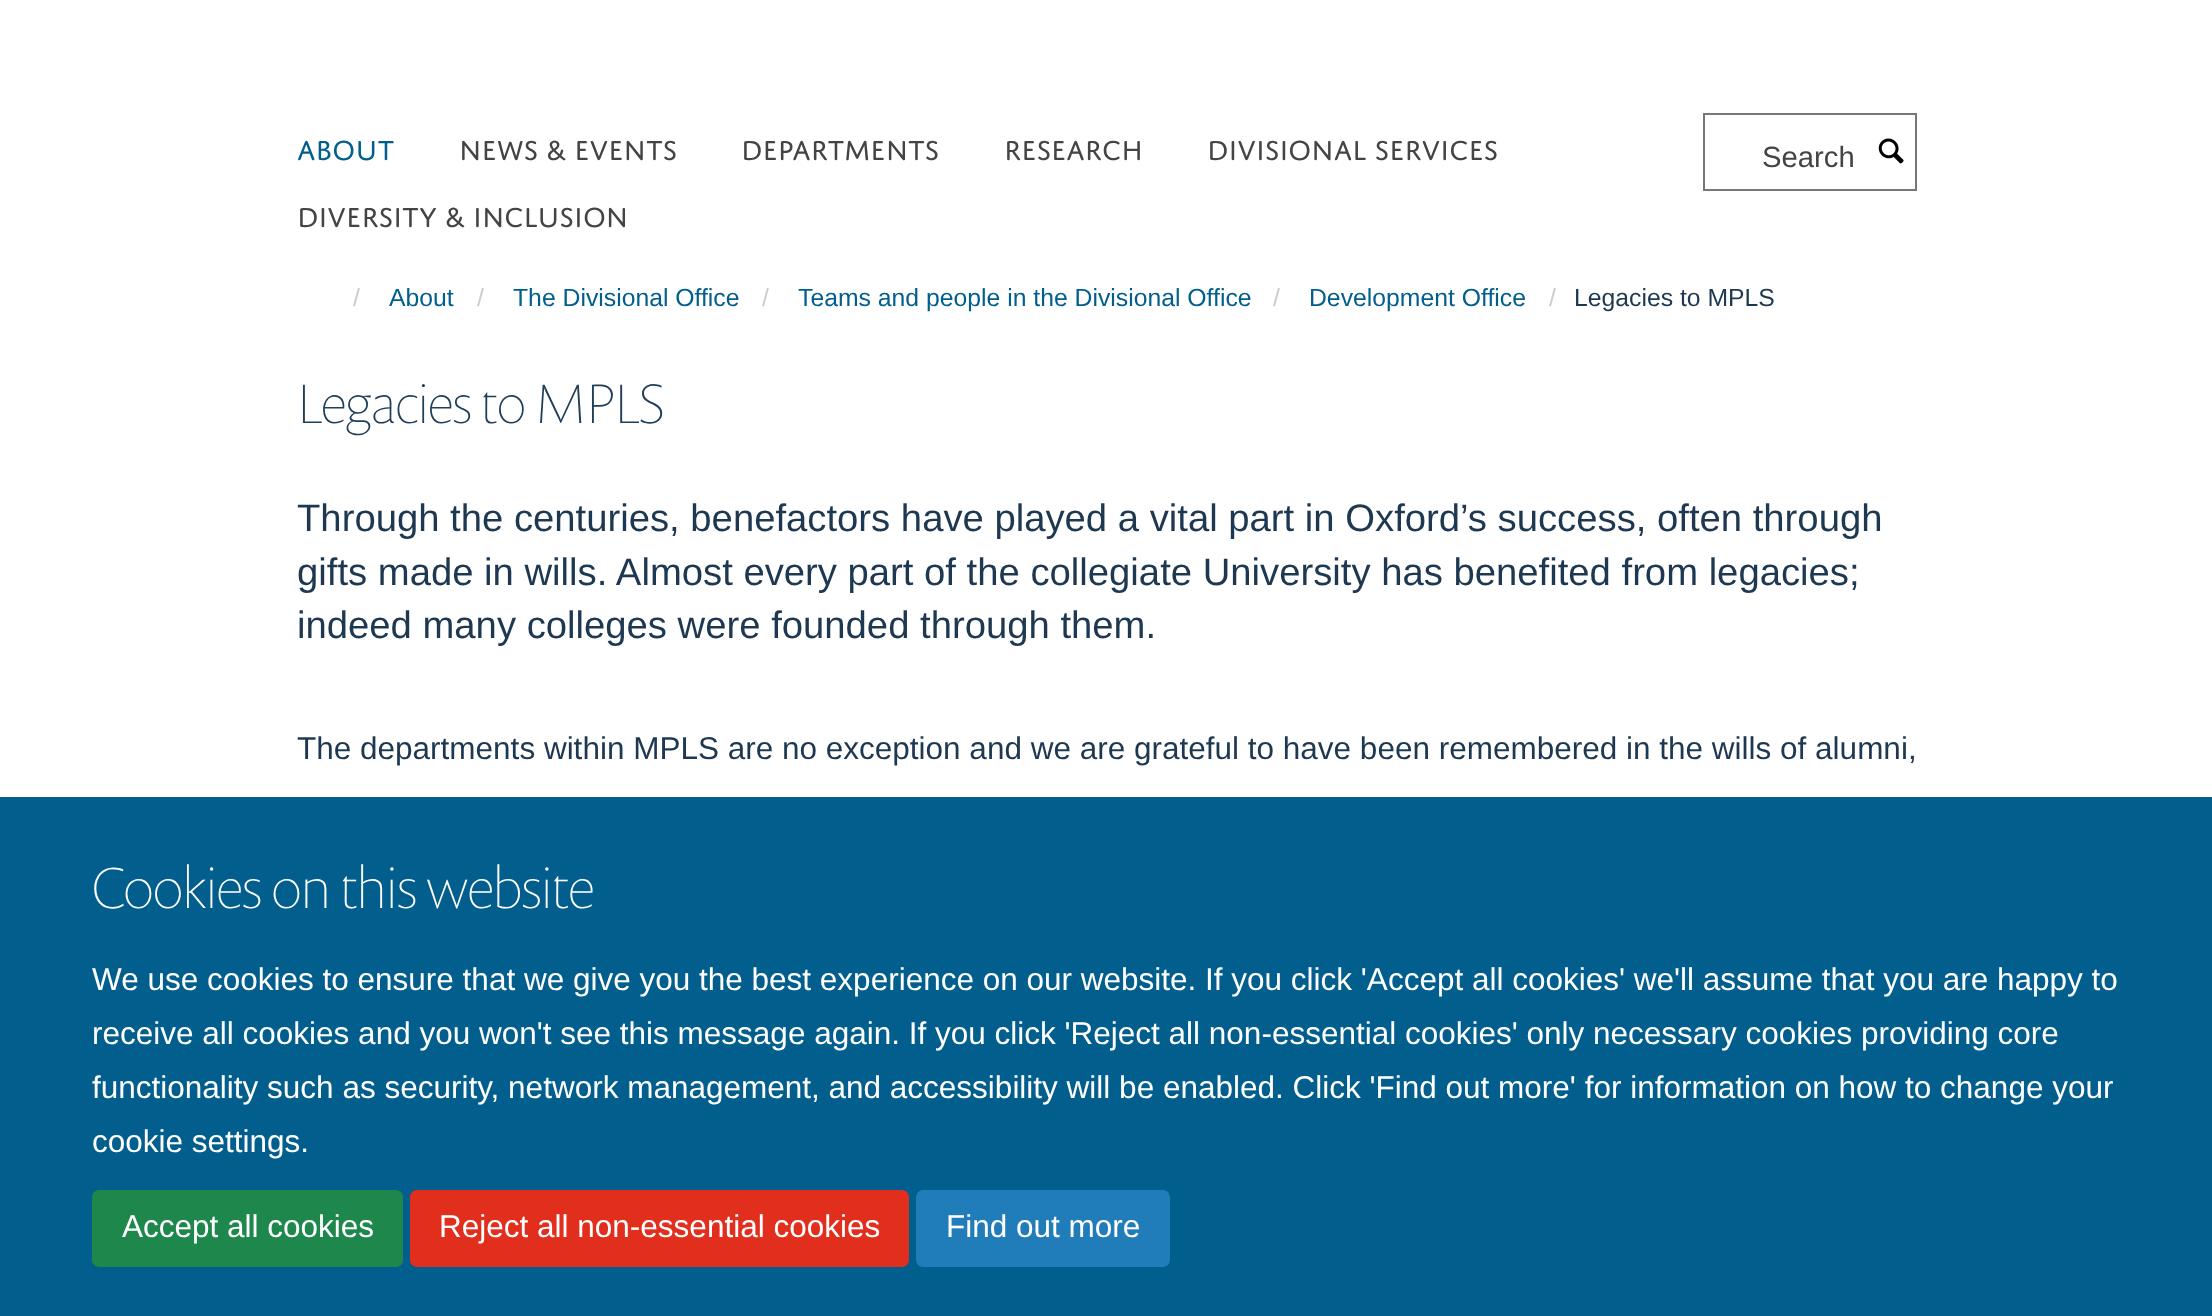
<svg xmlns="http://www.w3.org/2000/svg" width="2212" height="1316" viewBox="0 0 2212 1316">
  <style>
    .t1 { font: 29.25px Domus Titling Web; fill: #015e8d; }
    .t2 { font: 29.25px Domus Titling Web; fill: #444; }
    .t3 { font: 29.25px Liberation Sans; fill: #444; }
    .t4 { font: 24.75px Liberation Sans; fill: #ccc; }
    .t5 { font: 24.75px Liberation Sans; fill: #015e8d; }
    .t6 { font: 24.75px Liberation Sans; fill: #1d3850; }
    .t7 { font: 100 56.25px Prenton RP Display; fill: #203e58; }
    .t8 { font: 38.25px Liberation Sans; fill: #1d3850; }
    .t9 { font: 31.5px Liberation Sans; fill: #1d3850; }
    .t10 { font: 100 58.5px Prenton RP Display; fill: #fff; }
    .t11 { font: 31.5px Liberation Sans; fill: #fff; }
  </style>
  <rect width="100%" height="100%" fill="#fff"/>
  <text x="297" y="160" class="t1">ABOUT</text>
  <text x="459" y="160" class="t2">NEWS &amp; EVENTS</text>
  <text x="741" y="160" class="t2">DEPARTMENTS</text>
  <text x="1004" y="160" class="t2">RESEARCH</text>
  <text x="1207" y="160" class="t2">DIVISIONAL SERVICES</text>
  <text x="297" y="227" class="t2">DIVERSITY &amp; INCLUSION</text>
  <rect x="1704" y="114" width="212" height="76" fill="none" stroke="#777" stroke-width="2"/>
  <text x="1762" y="167" class="t3">Search</text>
  <image x="1878" y="138" width="26" height="26" href="images/1.png"/>
  <text x="353" y="306" class="t4">/</text>
  <text x="389" y="306" class="t5">About</text>
  <text x="477" y="306" class="t4">/</text>
  <text x="513" y="306" class="t5">The Divisional Office</text>
  <text x="762" y="306" class="t4">/</text>
  <text x="798" y="306" class="t5">Teams and people in the Divisional Office</text>
  <text x="1273" y="306" class="t4">/</text>
  <text x="1309" y="306" class="t5">Development Office</text>
  <text x="1549" y="306" class="t4">/</text>
  <text x="1574" y="306" class="t6">Legacies to MPLS</text>
  <text x="297" y="423" class="t7">Legacies to MPLS</text>
  <text x="297" y="531" class="t8">Through the centuries, benefactors have played a vital part in Oxford’s success, often through</text>
  <text x="297" y="585" class="t8">gifts made in wills. Almost every part of the collegiate University has benefited from legacies;</text>
  <text x="297" y="638" class="t8">indeed many colleges were founded through them.</text>
  <text x="297" y="759" class="t9">The departments within MPLS are no exception and we are grateful to have been remembered in the wills of alumni,</text>
  <rect x="0" y="797" width="2212" height="519" fill="#015e8d"/>
  <text x="92" y="908" class="t10">Cookies on this website</text>
  <text x="92" y="990" class="t11">We use cookies to ensure that we give you the best experience on our website. If you click 'Accept all cookies' we'll assume that you are happy to</text>
  <text x="92" y="1044" class="t11">receive all cookies and you won't see this message again. If you click 'Reject all non-essential cookies' only necessary cookies providing core</text>
  <text x="92" y="1098" class="t11">functionality such as security, network management, and accessibility will be enabled. Click 'Find out more' for information on how to change your</text>
  <text x="92" y="1152" class="t11">cookie settings.</text>
  <rect x="93" y="1191" width="309" height="75" rx="6" fill="#1e874b" stroke="#1e874b" stroke-width="2"/>
  <text x="122" y="1237" class="t11">Accept all cookies</text>
  <rect x="411" y="1191" width="497" height="75" rx="6" fill="#e22e1c" stroke="#e22e1c" stroke-width="2"/>
  <text x="439" y="1237" class="t11">Reject all non-essential cookies</text>
  <rect x="917" y="1191" width="252" height="75" rx="6" fill="#217cba" stroke="#217cba" stroke-width="2"/>
  <text x="946" y="1237" class="t11">Find out more</text>
</svg>
